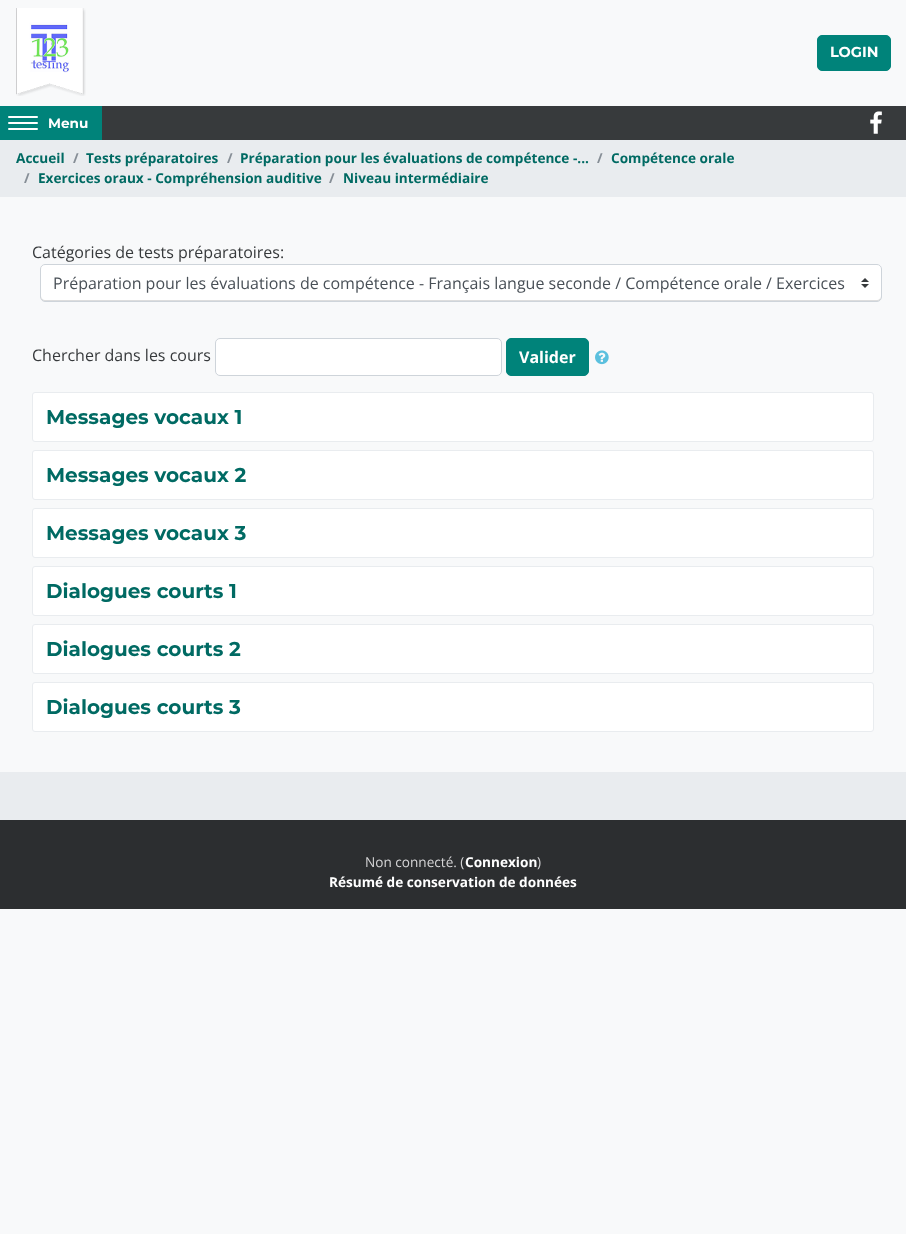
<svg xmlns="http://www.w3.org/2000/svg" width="906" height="1234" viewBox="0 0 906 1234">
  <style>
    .t1 { font: bold 14.5px Montserrat; fill: #fff; }
    .t2 { font: bold 13.6px Montserrat; fill: #fff; }
    .t3 { font: bold 13.6px Open Sans; fill: #006a63; }
    .t4 { font: bold 13.6px Open Sans; fill: #868e96; }
    .t5 { font: 16px Open Sans; fill: #373a3c; }
    .t6 { font: 16px Open Sans; fill: #495057; }
    .t7 { font: bold 16px Open Sans; fill: #fff; }
    .t8 { font: bold 20px Montserrat; fill: #006a63; }
    .t9 { font: 13.6px Open Sans; fill: #d5d5d6; }
    .t10 { font: bold 13.6px Open Sans; fill: #fff; }
  </style>
  <rect width="100%" height="100%" fill="#f8f9fa"/>
  <image x="16" y="8" width="70" height="88" href="images/1.png"/>
  <rect x="817.5" y="35.5" width="73" height="35" rx="4.5" fill="#00837a" stroke="#00837a"/>
  <text x="830" y="57" class="t1">LOGIN</text>
  <rect x="102" y="106" width="804" height="34" fill="#373a3c"/>
  <rect x="0" y="106" width="102" height="34" fill="#00837a"/>
  <rect x="8" y="116" width="30" height="2" rx="1" fill="#fff"/>
  <rect x="8" y="122" width="30" height="2" rx="1" fill="#fff"/>
  <rect x="8" y="128" width="30" height="2" rx="1" fill="#fff"/>
  <text x="48" y="128" class="t2">Menu</text>
  <image x="870" y="111" width="12" height="23" href="images/2.png"/>
  <rect x="0" y="140" width="906" height="57" fill="#e9ecef"/>
  <text x="16" y="163" class="t3">Accueil</text>
  <text x="73" y="163" class="t4">/</text>
  <text x="86" y="163" class="t3">Tests préparatoires</text>
  <text x="227" y="163" class="t4">/</text>
  <text x="240" y="163" class="t3">Préparation pour les évaluations de compétence -...</text>
  <text x="597" y="163" class="t4">/</text>
  <text x="611" y="163" class="t3">Compétence orale</text>
  <text x="24" y="183" class="t4">/</text>
  <text x="38" y="183" class="t3">Exercices oraux - Compréhension auditive</text>
  <text x="329" y="183" class="t4">/</text>
  <text x="343" y="183" class="t3">Niveau intermédiaire</text>
  <text x="32" y="258" class="t5">Catégories de tests préparatoires:</text>
  <rect x="40" y="264" width="842" height="38" rx="5" fill="#fff"/>
  <image x="861" y="278" width="8" height="10" href="images/3.png"/>
  <path d="M41 296C41 299 42 301 45 301H877C880 301 881 299 881 296C881 298 879 300 877 300H45C43 300 41 298 41 296Z" fill="#ddd"/>
  <rect x="40.5" y="264.5" width="841" height="37" rx="4.5" fill="none" stroke="#ced4da"/>
  <text x="53" y="289" class="t6">Préparation pour les évaluations de compétence - Français langue seconde / Compétence orale / Exercices</text>
  <text x="32" y="361" class="t5">Chercher dans les cours</text>
  <rect x="215.5" y="338.5" width="286" height="37" rx="4.5" fill="#fff" stroke="#ced4da"/>
  <rect x="506.5" y="338.5" width="82" height="37" rx="4.5" fill="#00837a" stroke="#00837a"/>
  <text x="519" y="363" class="t7">Valider</text>
  <image x="595" y="350" width="14" height="15" href="images/4.png"/>
  <rect x="32.5" y="392.5" width="841" height="49" rx="2.5" fill="#fff" stroke="#e9ecef"/>
  <text x="46" y="424" class="t8">Messages vocaux 1</text>
  <rect x="32.5" y="450.5" width="841" height="49" rx="2.5" fill="#fff" stroke="#e9ecef"/>
  <text x="46" y="482" class="t8">Messages vocaux 2</text>
  <rect x="32.5" y="508.5" width="841" height="49" rx="2.5" fill="#fff" stroke="#e9ecef"/>
  <text x="46" y="540" class="t8">Messages vocaux 3</text>
  <rect x="32.5" y="566.5" width="841" height="49" rx="2.5" fill="#fff" stroke="#e9ecef"/>
  <text x="46" y="598" class="t8">Dialogues courts 1</text>
  <rect x="32.5" y="624.5" width="841" height="49" rx="2.5" fill="#fff" stroke="#e9ecef"/>
  <text x="46" y="656" class="t8">Dialogues courts 2</text>
  <rect x="32.5" y="682.5" width="841" height="49" rx="2.5" fill="#fff" stroke="#e9ecef"/>
  <text x="46" y="714" class="t8">Dialogues courts 3</text>
  <rect x="0" y="772" width="906" height="48" fill="#e9ecef"/>
  <rect x="0" y="820" width="906" height="89" fill="#2c2e30"/>
  <text x="365" y="867" class="t9">Non connecté. (</text>
  <text x="465" y="867" class="t10">Connexion</text>
  <text x="537" y="867" class="t9">)</text>
  <text x="329" y="887" class="t10">Résumé de conservation de données</text>
</svg>
